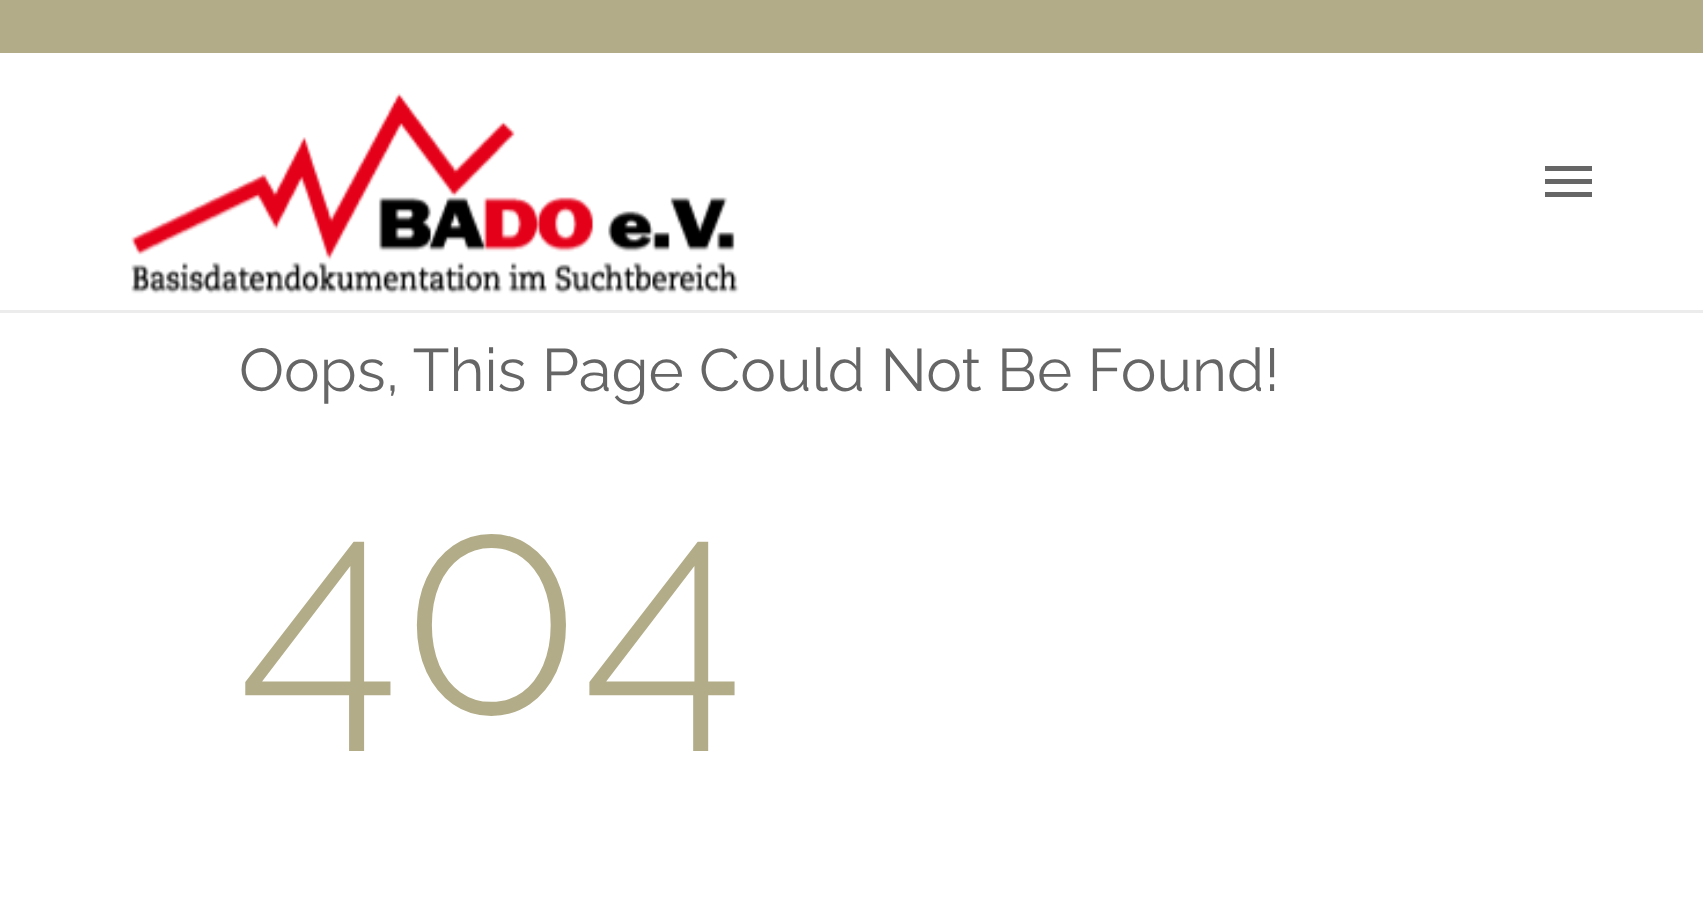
<svg xmlns="http://www.w3.org/2000/svg" width="1703" height="909" viewBox="0 0 1703 909">
  <style>
    .t1 { font: 60px Raleway; fill: #666; }
    .t2 { font: 300 300px Raleway; fill: #b2ac88; }
  </style>
  <rect width="100%" height="100%" fill="#fff"/>
  <rect x="0" y="0" width="1703" height="53" fill="#b2ac88"/>
  <rect x="0" y="310" width="1703" height="3" fill="#ececec"/>
  <image x="131" y="93" width="608" height="201" href="images/1.png"/>
  <path d="M1545 166H1592V171H1545ZM1545 184V179H1592V184ZM1545 197V192H1592V197Z" fill="#666"/>
  <text x="239" y="391" class="t1">Oops, This Page Could Not Be Found!</text>
  <text x="239" y="713" class="t2">404</text>
</svg>
